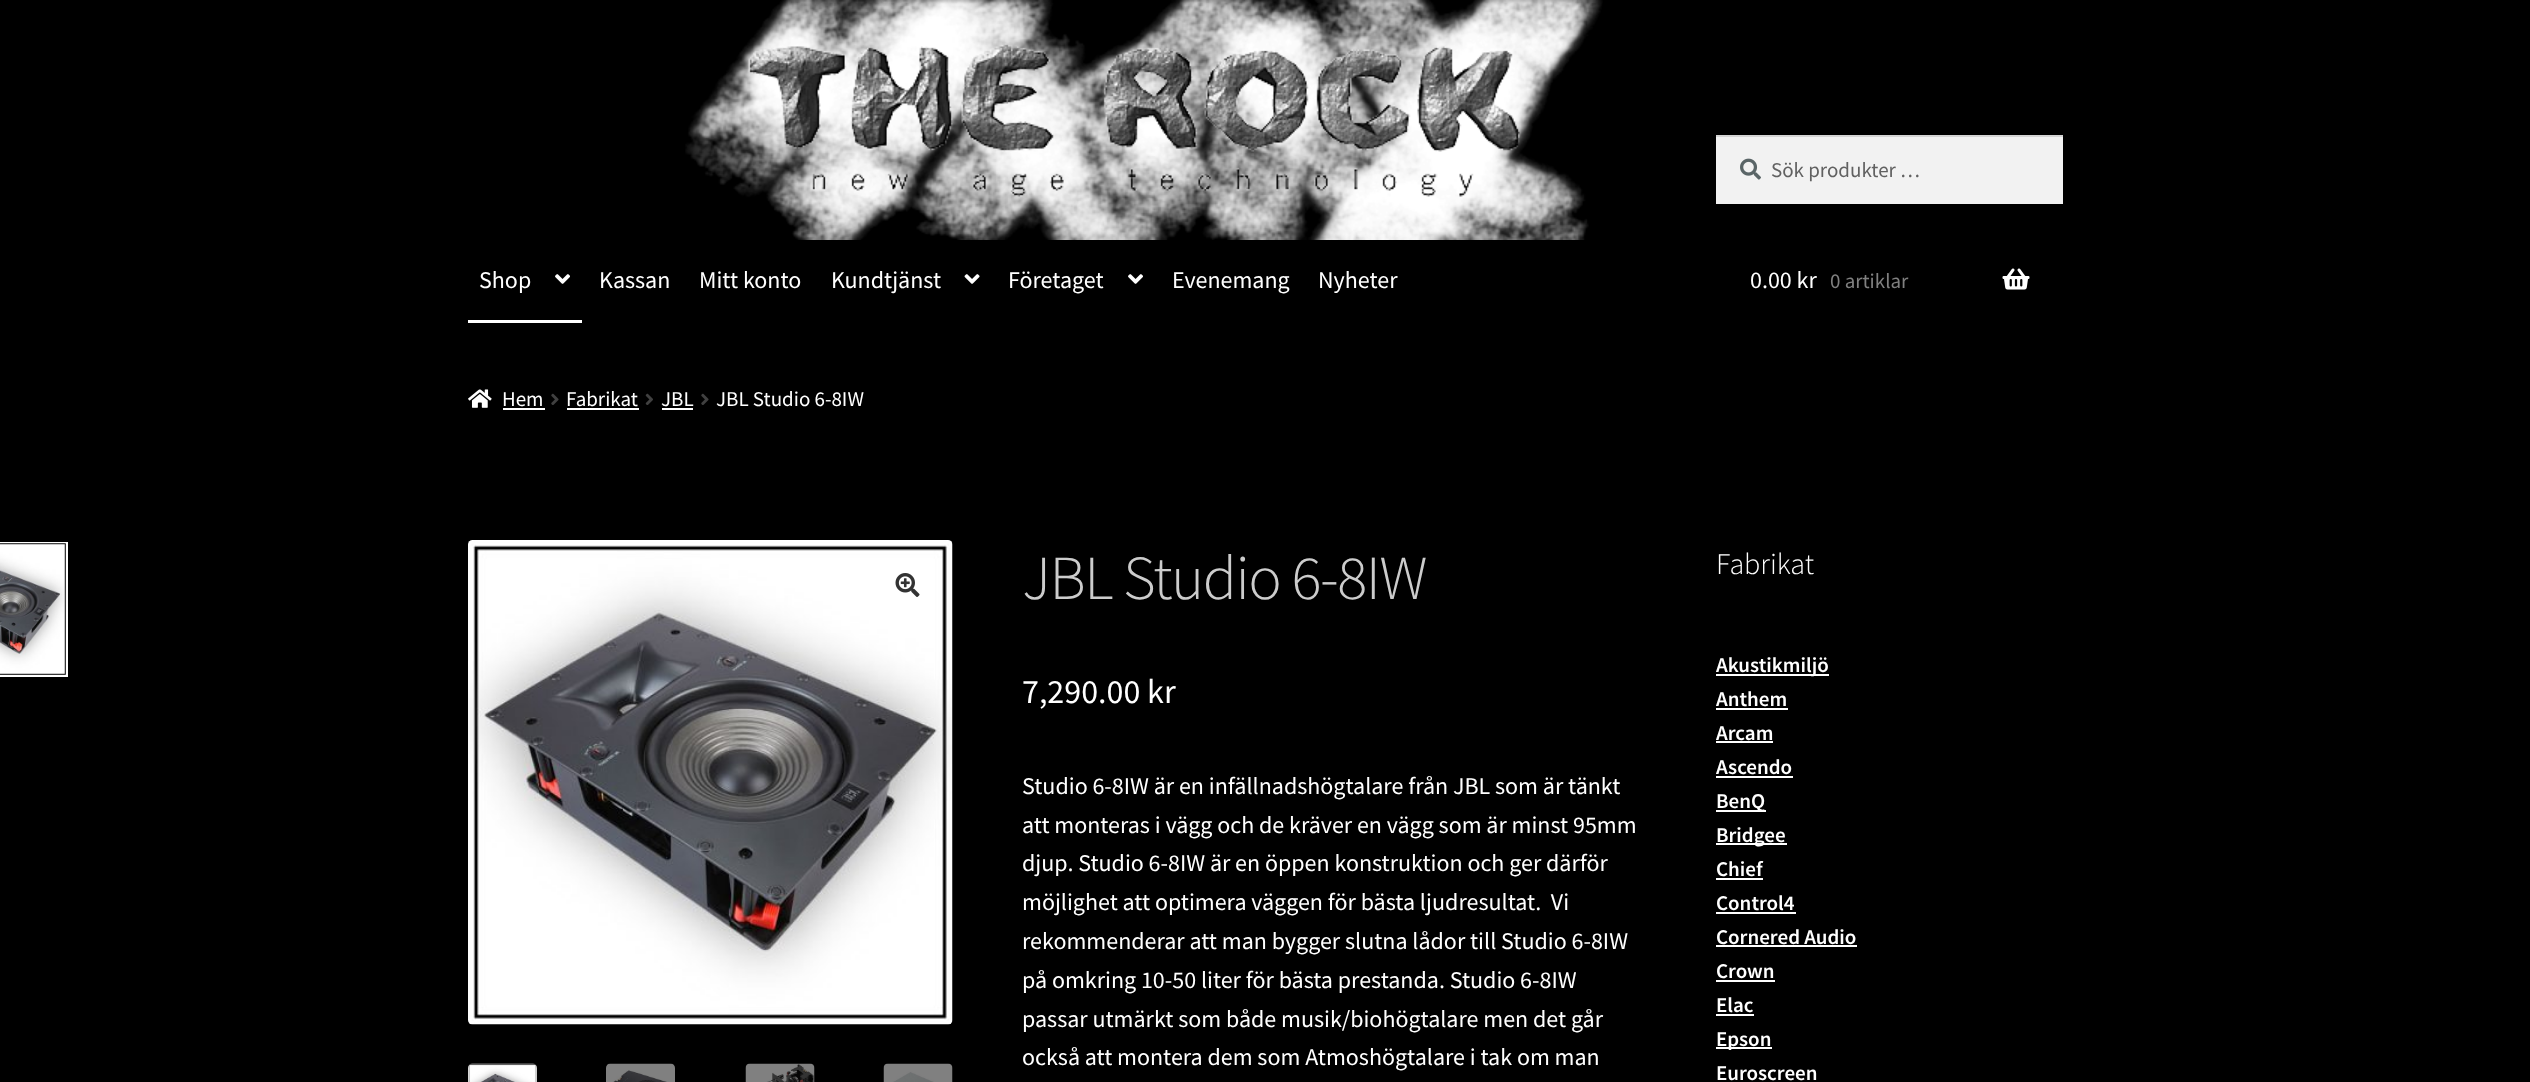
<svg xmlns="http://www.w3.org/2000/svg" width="2530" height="1082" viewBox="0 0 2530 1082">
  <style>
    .t1 { font: 21px Source Sans Pro; fill: #616161; }
    .t2 { font: 24px Source Sans Pro; fill: #fff; }
    .t3 { font: 21px Source Sans Pro; fill: #808080; }
    .t4 { font: 21px Source Sans Pro; fill: #fff; }
    .t5 { font: 300 62.75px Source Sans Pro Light; letter-spacing: -1.5px; fill: #ccc; }
    .t6 { font: 34px Source Sans Pro; fill: #fff; }
    .t7 { font: 300 30px Source Sans Pro Light; fill: #fff; }
    .t8 { font: 600 21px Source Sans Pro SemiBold; fill: #fff; }
  </style>
  <rect width="100%" height="100%" fill="#000"/>
  <image x="685" y="0" width="918" height="240" href="images/1.png"/>
  <rect x="0" y="-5" width="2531" height="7" fill="#00000033" filter="blur(1.5px)"/>
  <rect x="1716" y="137" width="347" height="67" fill="#f2f2f2"/>
  <image x="1740" y="158" width="21" height="22" href="images/2.png"/>
  <rect x="1716" y="135" width="347" height="2" fill="#d4d4d4"/>
  <text x="1771" y="177" class="t1">Sök produkter …</text>
  <rect x="468" y="320" width="114" height="3" fill="#fff"/>
  <text x="479" y="288" class="t2">Shop</text>
  <image x="555" y="274" width="15" height="10" href="images/3.png"/>
  <text x="599" y="288" class="t2">Kassan</text>
  <text x="699" y="288" class="t2">Mitt konto</text>
  <text x="831" y="288" class="t2">Kundtjänst</text>
  <image x="964" y="274" width="16" height="10" href="images/4.png"/>
  <text x="1008" y="288" class="t2">Företaget</text>
  <image x="1128" y="274" width="15" height="10" href="images/3.png"/>
  <text x="1172" y="288" class="t2">Evenemang</text>
  <text x="1318" y="288" class="t2">Nyheter</text>
  <text x="1750" y="288" class="t2">0.00 kr</text>
  <text x="1830" y="288" class="t3">0 artiklar</text>
  <image x="2002" y="268" width="28" height="22" href="images/5.png"/>
  <image x="468" y="389" width="24" height="19" href="images/6.png"/>
  <text x="502" y="406" class="t4">Hem</text>
  <rect x="503" y="408" width="42" height="2" fill="#fff"/>
  <image x="551" y="393" width="8" height="12" href="images/7.png"/>
  <text x="566" y="406" class="t4">Fabrikat</text>
  <rect x="567" y="408" width="72" height="2" fill="#fff"/>
  <image x="645" y="393" width="8" height="12" href="images/8.png"/>
  <text x="661" y="406" class="t4">JBL</text>
  <rect x="662" y="408" width="31" height="2" fill="#fff"/>
  <image x="701" y="393" width="8" height="12" href="images/7.png"/>
  <text x="716" y="406" class="t4">JBL Studio 6-8IW</text>
  <image x="0" y="542" width="68" height="135" href="images/9.png"/>
  <image x="468" y="540" width="485" height="485" href="images/10.png"/>
  <image x="895" y="573" width="25" height="24" href="images/11.png"/>
  <image x="468" y="1063" width="69" height="19" href="images/12.png"/>
  <image x="606" y="1063" width="69" height="19" href="images/13.png"/>
  <image x="745" y="1063" width="70" height="19" href="images/14.png"/>
  <image x="883" y="1063" width="70" height="19" href="images/15.png"/>
  <text x="1022" y="599" class="t5">JBL Studio 6-8IW</text>
  <text x="1022" y="703" class="t6">7,290.00 kr</text>
  <text x="1022" y="794" class="t2">Studio 6-8IW är en infällnadshögtalare från JBL som är tänkt</text>
  <text x="1022" y="833" class="t2">att monteras i vägg och de kräver en vägg som är minst 95mm</text>
  <text x="1022" y="871" class="t2">djup. Studio 6-8IW är en öppen konstruktion och ger därför</text>
  <text x="1022" y="910" class="t2" xml:space="preserve">möjlighet att optimera väggen för bästa ljudresultat.  Vi</text>
  <text x="1022" y="949" class="t2">rekommenderar att man bygger slutna lådor till Studio 6-8IW</text>
  <text x="1022" y="988" class="t2">på omkring 10-50 liter för bästa prestanda. Studio 6-8IW</text>
  <text x="1022" y="1027" class="t2">passar utmärkt som både musik/biohögtalare men det går</text>
  <text x="1022" y="1065" class="t2">också att montera dem som Atmoshögtalare i tak om man</text>
  <text x="1716" y="574" class="t7">Fabrikat</text>
  <rect x="1716" y="674" width="113" height="2" fill="#fff"/>
  <text x="1716" y="672" class="t8">Akustikmiljö</text>
  <text x="1716" y="706" class="t8">Anthem</text>
  <rect x="1716" y="708" width="72" height="2" fill="#fff"/>
  <text x="1716" y="740" class="t8">Arcam</text>
  <rect x="1716" y="741" width="57" height="2" fill="#fff"/>
  <text x="1716" y="774" class="t8">Ascendo</text>
  <rect x="1716" y="776" width="77" height="2" fill="#fff"/>
  <rect x="1716" y="810" width="50" height="2" fill="#fff"/>
  <text x="1716" y="808" class="t8">BenQ</text>
  <rect x="1716" y="843" width="71" height="2" fill="#fff"/>
  <text x="1716" y="842" class="t8">Bridgee</text>
  <text x="1716" y="876" class="t8">Chief</text>
  <rect x="1716" y="878" width="47" height="2" fill="#fff"/>
  <text x="1716" y="910" class="t8">Control4</text>
  <rect x="1716" y="912" width="80" height="2" fill="#fff"/>
  <text x="1716" y="944" class="t8">Cornered Audio</text>
  <rect x="1716" y="945" width="141" height="2" fill="#fff"/>
  <text x="1716" y="978" class="t8">Crown</text>
  <rect x="1716" y="980" width="59" height="2" fill="#fff"/>
  <text x="1716" y="1012" class="t8">Elac</text>
  <rect x="1716" y="1014" width="38" height="2" fill="#fff"/>
  <rect x="1716" y="1047" width="56" height="2" fill="#fff"/>
  <text x="1716" y="1046" class="t8">Epson</text>
  <text x="1716" y="1080" class="t8">Euroscreen</text>
</svg>
